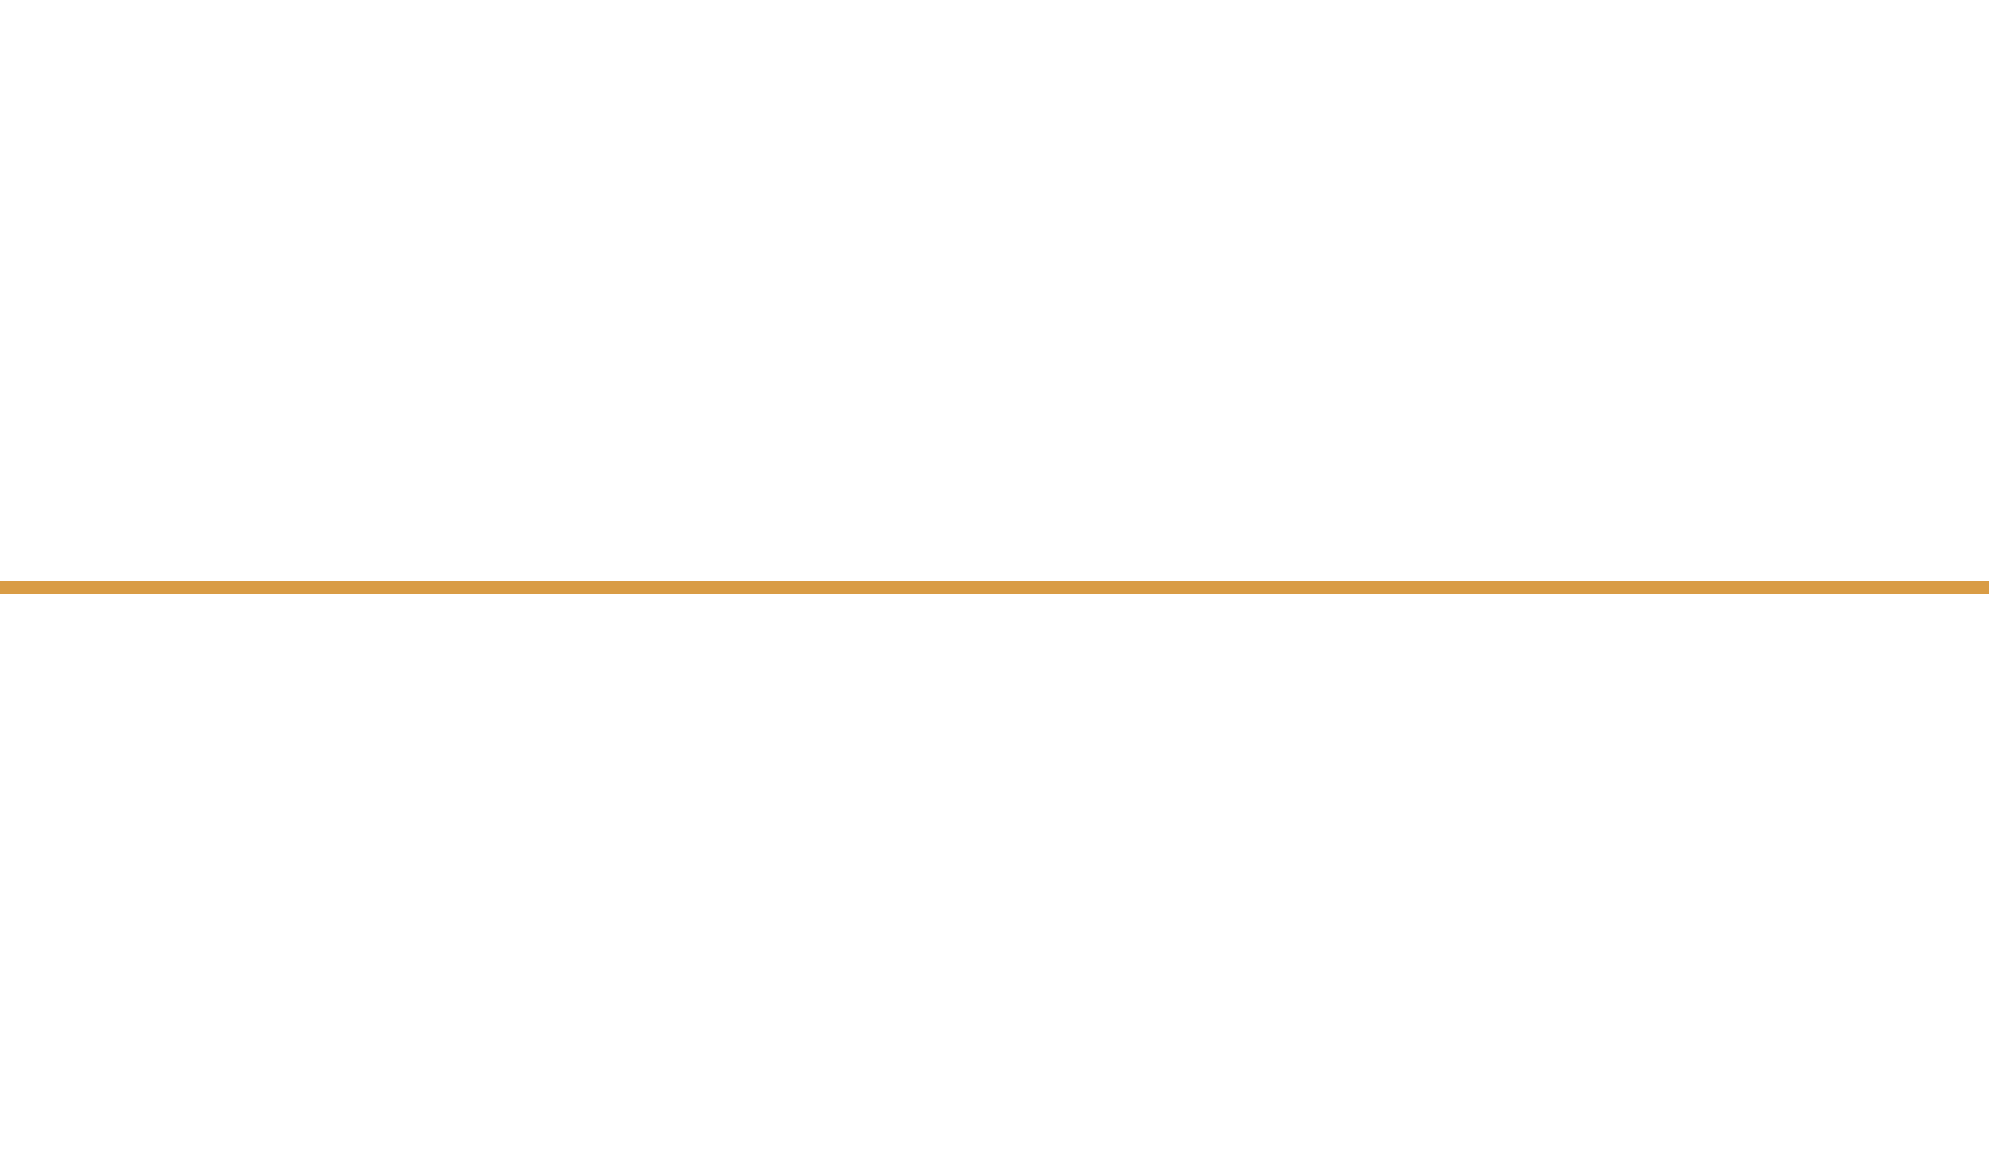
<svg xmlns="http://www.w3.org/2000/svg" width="1989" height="1175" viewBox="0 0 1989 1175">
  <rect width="100%" height="100%" fill="#fff"/>
  <rect x="0" y="581" width="1989" height="13" fill="#d99c45"/>
</svg>
